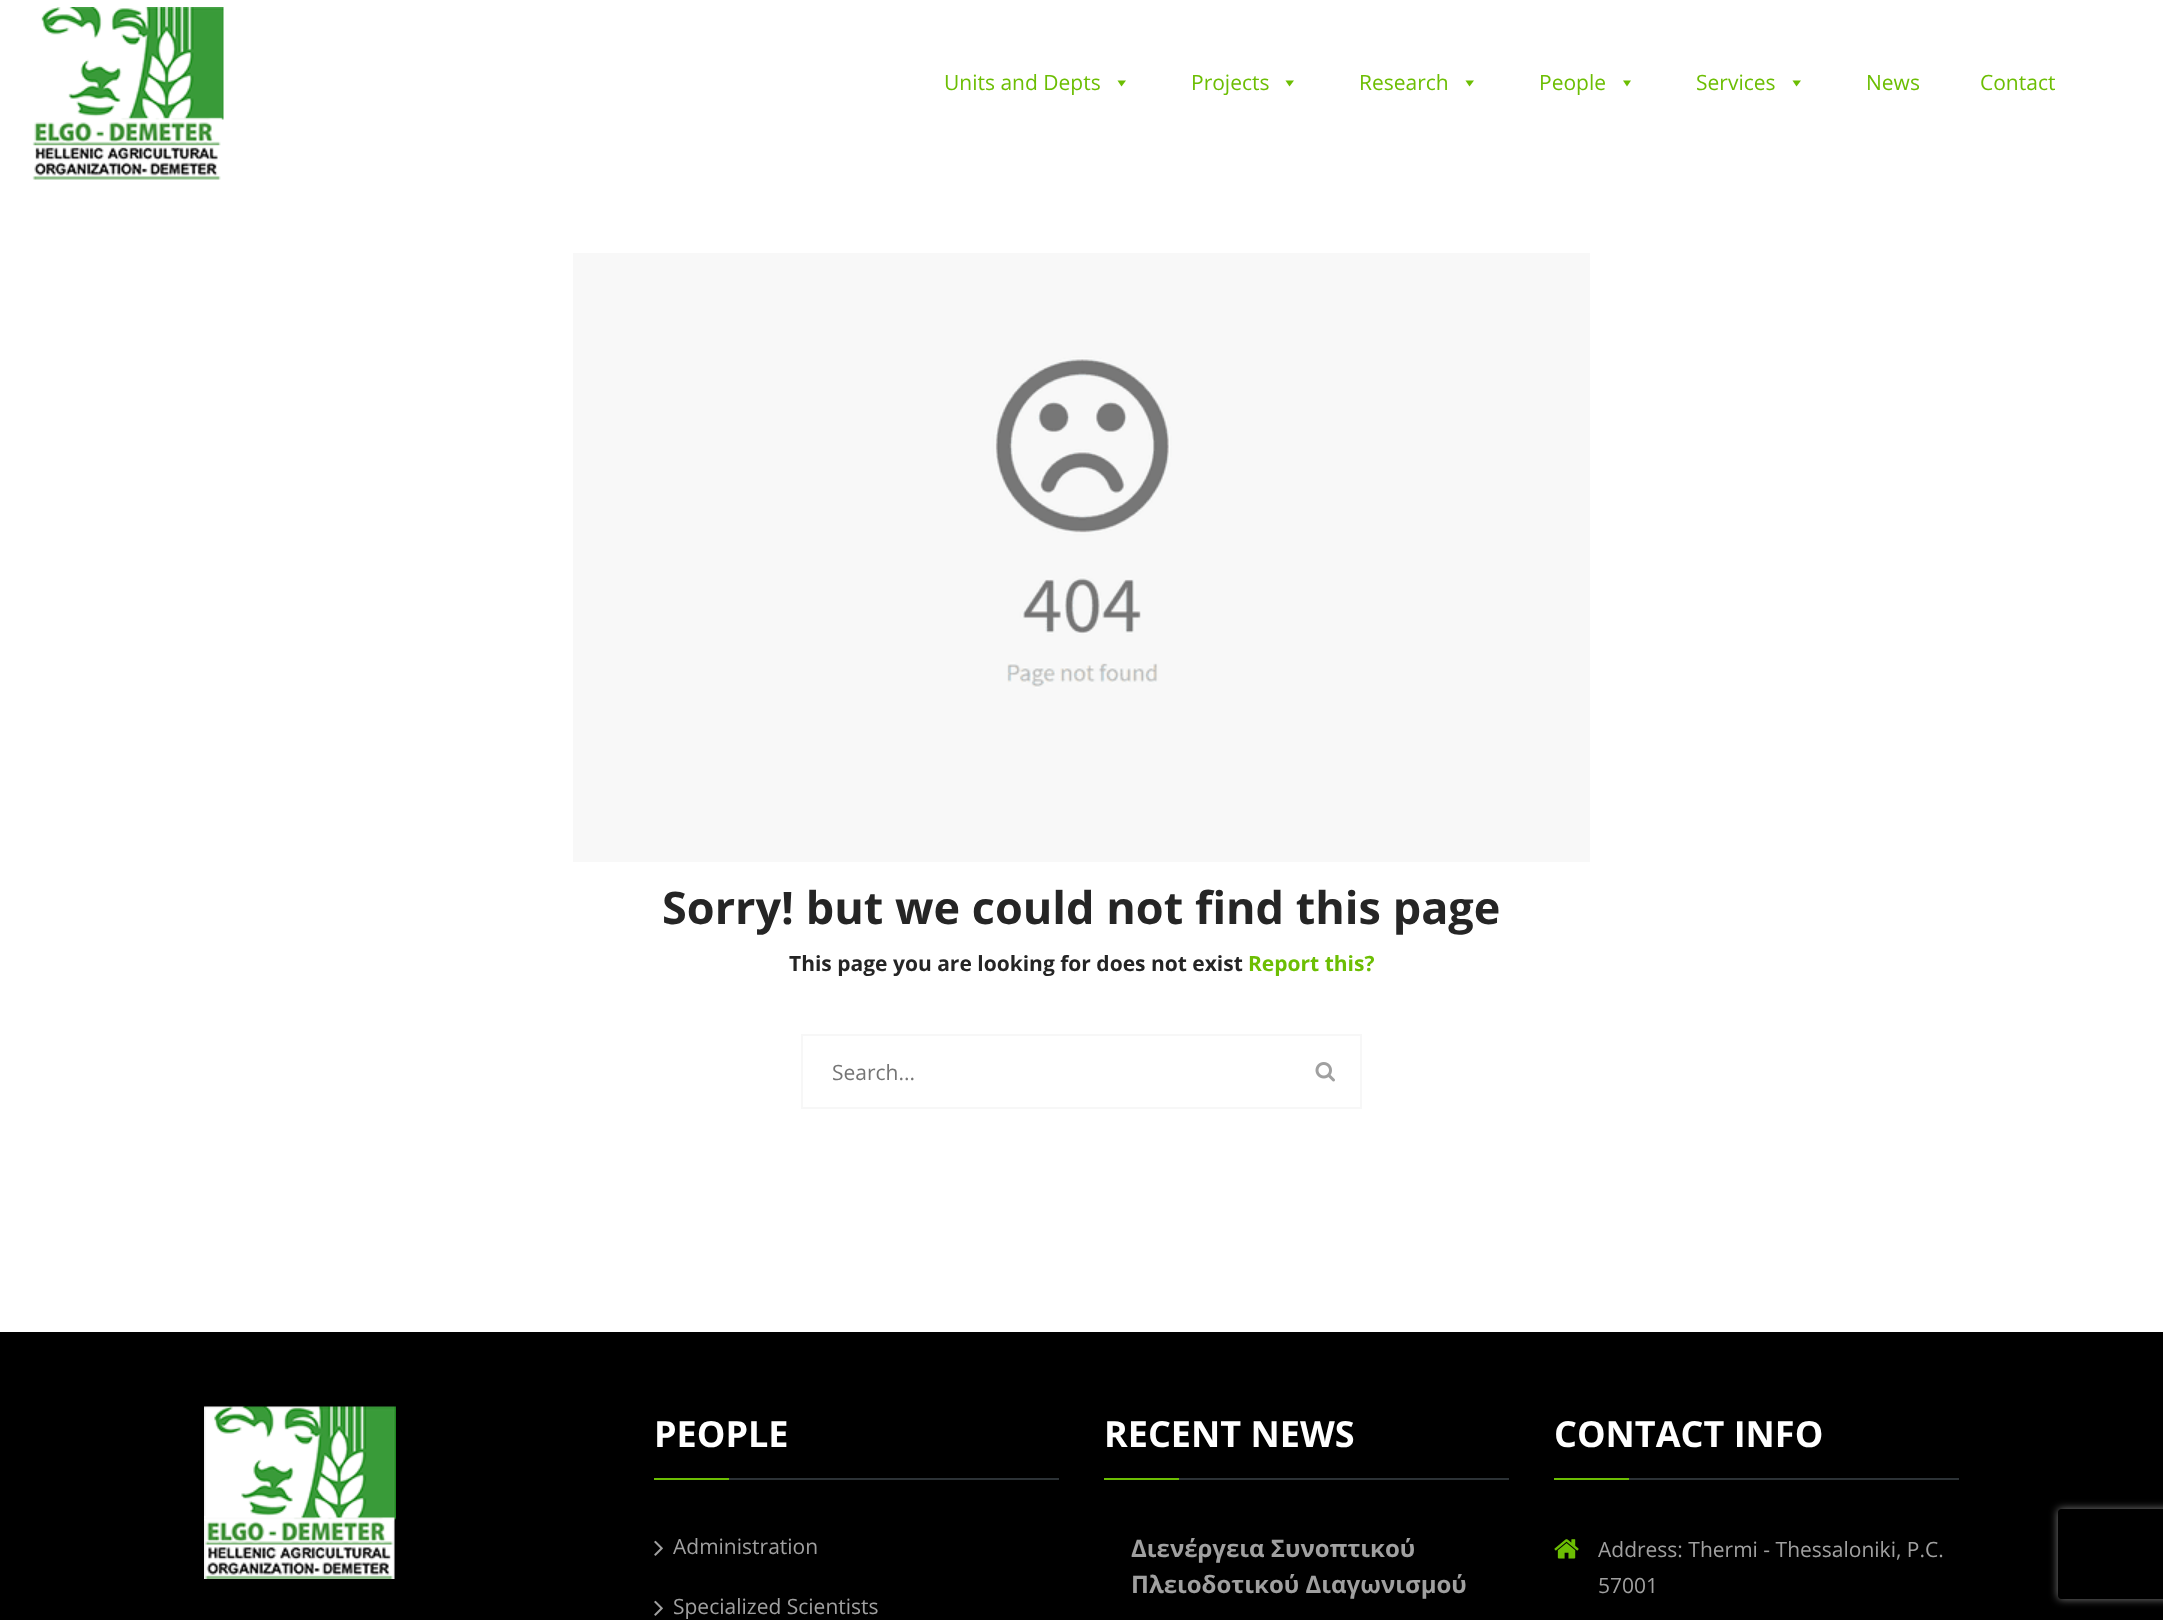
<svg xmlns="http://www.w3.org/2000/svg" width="2163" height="1620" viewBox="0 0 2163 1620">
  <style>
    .t1 { font: 21px Open Sans; fill: #6cbe03; }
    .t2 { font: bold 45px Open Sans; fill: #252525; }
    .t3 { font: bold 21px Open Sans; fill: #252525; }
    .t4 { font: bold 21px Open Sans; fill: #6cbe03; }
    .t5 { font: 21px Open Sans; fill: #757575; }
    .t6 { font: bold 36px Open Sans; fill: #fff; }
    .t7 { font: 21px Open Sans; fill: #a0a0a0; }
    .t8 { font: bold 24px Open Sans; fill: #a0a0a0; }
  </style>
  <defs>
    <clipPath id="clip1"><path d="M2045 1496H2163V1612H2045ZM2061 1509H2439C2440.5 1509 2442 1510.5 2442 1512V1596C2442 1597.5 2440.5 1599 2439 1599H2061C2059.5 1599 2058 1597.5 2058 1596V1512C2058 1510.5 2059.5 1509 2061 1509Z" clip-rule="evenodd"/></clipPath>
  </defs>
  <rect width="100%" height="100%" fill="#fff"/>
  <image x="32" y="7" width="192" height="173" href="images/1.png"/>
  <text x="944" y="90" class="t1">Units and Depts</text>
  <path d="M1126 80.5L1121.5 86.5L1117.5 80.5Z" fill="#6cbe03"/>
  <text x="1191" y="90" class="t1">Projects</text>
  <path d="M1294 80.5L1289.5 86.5L1285.5 80.5Z" fill="#6cbe03"/>
  <text x="1359" y="90" class="t1">Research</text>
  <path d="M1474 80.5L1469.5 86.5L1465.5 80.5Z" fill="#6cbe03"/>
  <text x="1539" y="90" class="t1">People</text>
  <path d="M1631 80.5L1627 86.5L1623 80.5Z" fill="#6cbe03"/>
  <text x="1696" y="90" class="t1">Services</text>
  <path d="M1801 80.5L1796.5 86.5L1792.5 80.5Z" fill="#6cbe03"/>
  <text x="1866" y="90" class="t1">News</text>
  <text x="1980" y="90" class="t1">Contact</text>
  <image x="573" y="253" width="1017" height="609" href="images/2.png"/>
  <text x="662" y="924" class="t2">Sorry! but we could not find this page</text>
  <text x="789" y="971" class="t3">This page you are looking for does not exist</text>
  <text x="1248" y="971" class="t4">Report this?</text>
  <rect x="802" y="1035" width="559" height="73" fill="none" stroke="#f7f7f7" stroke-width="2"/>
  <text x="832" y="1080" class="t5">Search...</text>
  <image x="1315" y="1062" width="20" height="20" href="images/3.png"/>
  <rect x="0" y="1332" width="2163" height="288" fill="#000"/>
  <image x="204" y="1406" width="192" height="173" href="images/4.png"/>
  <rect x="729" y="1478" width="330" height="2" fill="#2c3236"/>
  <text x="654" y="1447" class="t6">PEOPLE</text>
  <rect x="654" y="1478" width="75" height="2" fill="#6cbe03"/>
  <image x="654" y="1540" width="9" height="16" href="images/5.png"/>
  <text x="673" y="1554" class="t7">Administration</text>
  <image x="654" y="1600" width="9" height="16" href="images/5.png"/>
  <text x="673" y="1614" class="t7">Specialized Scientists</text>
  <rect x="1179" y="1478" width="330" height="2" fill="#2c3236"/>
  <text x="1104" y="1447" class="t6">RECENT NEWS</text>
  <rect x="1104" y="1478" width="75" height="2" fill="#6cbe03"/>
  <text x="1131" y="1557" class="t8">Διενέργεια Συνοπτικού</text>
  <text x="1131" y="1593" class="t8">Πλειοδοτικού Διαγωνισμού</text>
  <rect x="1629" y="1478" width="330" height="2" fill="#2c3236"/>
  <text x="1554" y="1447" class="t6">CONTACT INFO</text>
  <rect x="1554" y="1478" width="75" height="2" fill="#6cbe03"/>
  <image x="1554" y="1539" width="25" height="20" href="images/6.png"/>
  <text x="1598" y="1557" class="t7">Address: Thermi - Thessaloniki, P.C.</text>
  <text x="1598" y="1593" class="t7">57001</text>
  <g clip-path="url(#clip1)">
    <rect x="2058" y="1509" width="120" height="90" rx="3" fill="#808080" filter="blur(4px)"/>
  </g>
</svg>
